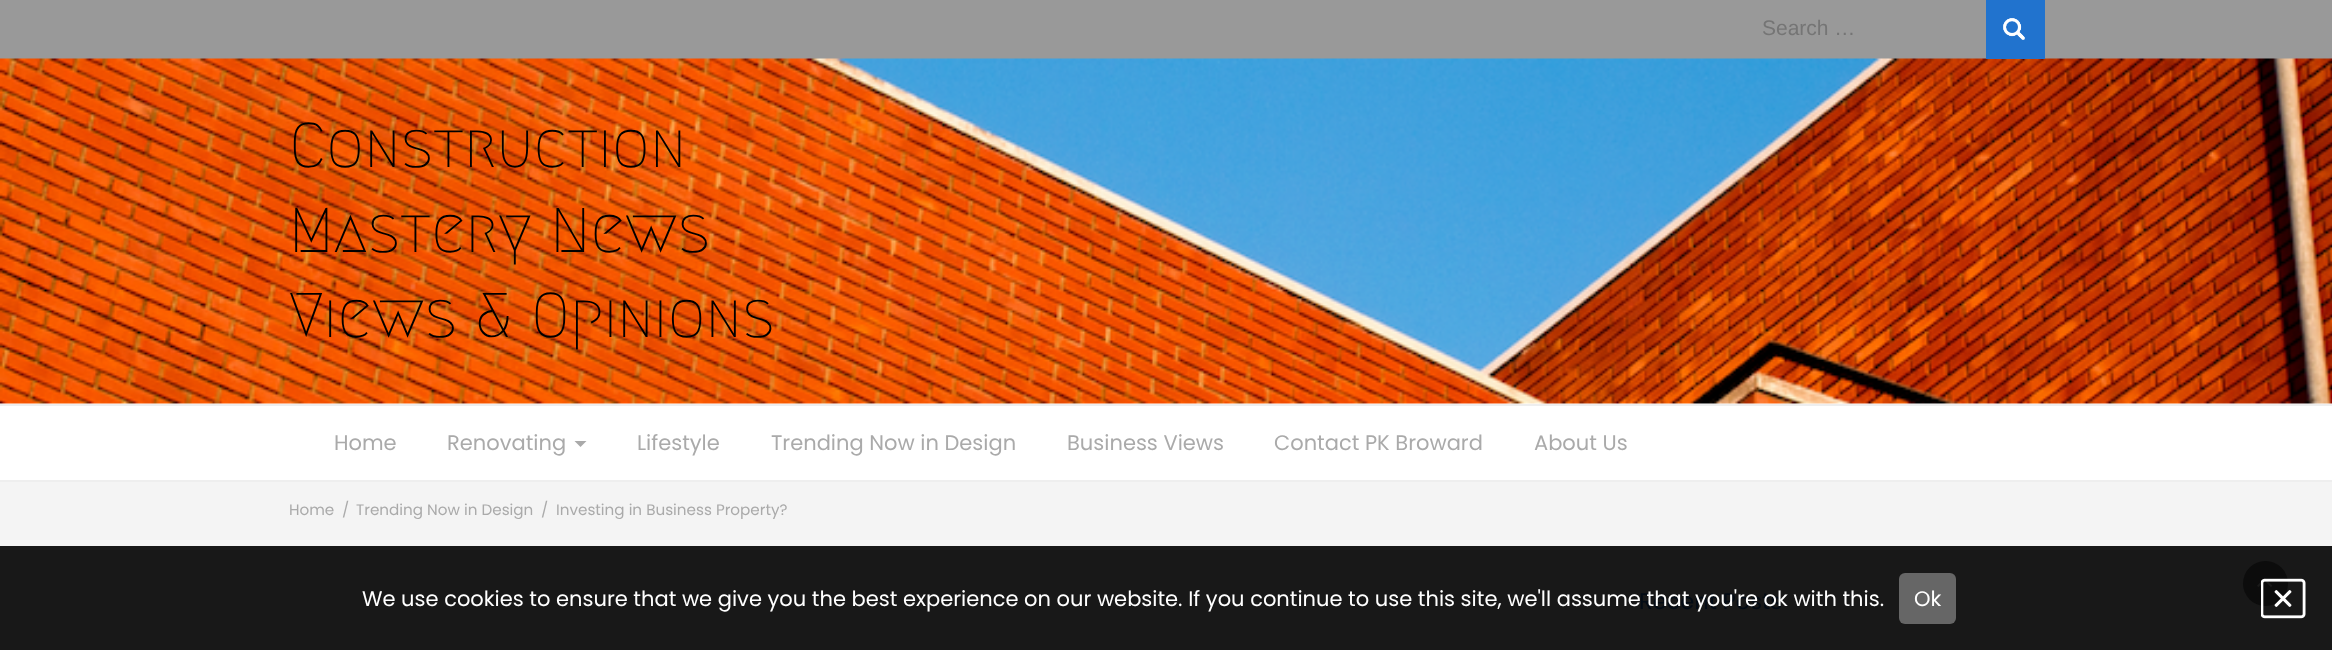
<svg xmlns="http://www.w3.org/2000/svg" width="2332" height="650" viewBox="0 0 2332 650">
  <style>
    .t1 { font: 21px Liberation Sans; fill: #757575; }
    .t2 { font: 500 63px Megrim; fill: #000; }
    .t3 { font: 21px Poppins; fill: #aaa; }
    .t4 { font: 15.2px Poppins; fill: #aaa; }
    .t5 { font: 22.5px Poppins; fill: #030b15; }
    .t6 { font: 21px Poppins; fill: #fff; }
  </style>
  <rect width="100%" height="100%" fill="#f4f4f4"/>
  <rect x="0" y="546" width="2332" height="104" fill="#181818"/>
  <rect x="0" y="403" width="2332" height="1" fill="#fff"/>
  <rect x="0" y="0" width="2332" height="59" fill="#999"/>
  <text x="1762" y="35" class="t1">Search …</text>
  <image x="0" y="58" width="2332" height="346" href="images/2.png"/>
  <rect x="1986" y="0" width="59" height="59" fill="#2173ce"/>
  <image x="2003" y="18" width="22" height="22" href="images/1.png"/>
  <text x="289" y="167" class="t2">Construction</text>
  <text x="289" y="252" class="t2">Mastery News</text>
  <text x="289" y="337" class="t2">Views &amp; Opinions</text>
  <rect x="0" y="406" width="2332" height="74" fill="#fff"/>
  <rect x="0" y="404" width="2332" height="2" fill="#eee"/>
  <rect x="0" y="480" width="2332" height="2" fill="#eee"/>
  <text x="334" y="450" class="t3">Home</text>
  <text x="447" y="450" class="t3">Renovating</text>
  <path d="M574.5 441H586.5L580.5 447Z" fill="#aaa"/>
  <text x="637" y="450" class="t3">Lifestyle</text>
  <text x="771" y="450" class="t3">Trending Now in Design</text>
  <text x="1067" y="450" class="t3">Business Views</text>
  <text x="1274" y="450" class="t3">Contact PK Broward</text>
  <text x="1534" y="450" class="t3">About Us</text>
  <text x="289" y="515" class="t4">Home</text>
  <text x="342" y="515" class="t4">/</text>
  <text x="356" y="515" class="t4">Trending Now in Design</text>
  <text x="541" y="515" class="t4">/</text>
  <text x="556" y="515" class="t4">Investing in Business Property?</text>
  <text x="1639" y="609" class="t5">Recent Posts</text>
  <text x="362" y="606" class="t6">We use cookies to ensure that we give you the best experience on our website. If you continue to use this site, we'll assume that you're ok with this.</text>
  <rect x="1899" y="573" width="57" height="51" rx="6" fill="#666"/>
  <text x="1914" y="606" class="t6">Ok</text>
  <circle cx="2265.5" cy="583.5" r="22.5" fill="#0c0c0c"/>
  <image x="2257" y="578" width="16" height="9" href="images/4.png"/>
  <image x="2261" y="578" width="45" height="41" href="images/3.png"/>
</svg>
